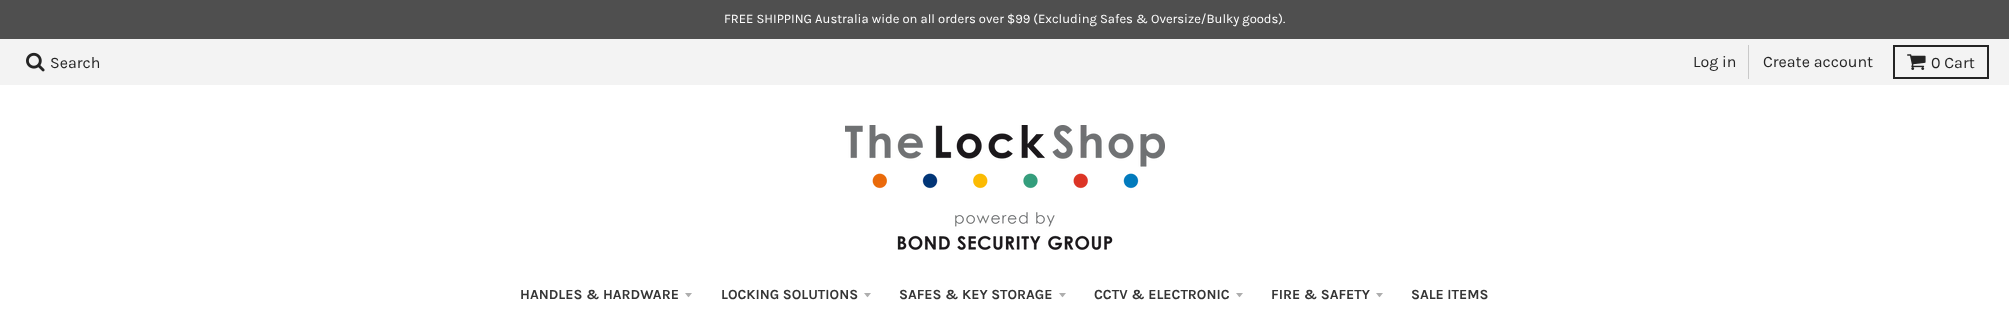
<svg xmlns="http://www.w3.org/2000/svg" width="2009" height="313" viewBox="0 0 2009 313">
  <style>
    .t1 { font: 13px Karla; fill: #fff; }
    .t2 { font: 16px Karla; fill: #242424; }
    .t3 { font: bold 14px Karla; fill: #353535; }
  </style>
  <rect width="100%" height="100%" fill="#fff"/>
  <rect x="0" y="0" width="2009" height="39" fill="#4f4f4f"/>
  <text x="724" y="23" class="t1">FREE SHIPPING Australia wide on all orders over $99 (Excluding Safes &amp; Oversize/Bulky goods).</text>
  <rect x="0" y="39" width="2009" height="46" fill="#f3f3f3"/>
  <image x="26" y="52" width="19" height="20" href="images/1.png"/>
  <text x="50" y="68" class="t2">Search</text>
  <rect x="1748" y="45" width="1" height="34" fill="#c9c9c9"/>
  <text x="1693" y="67" class="t2">Log in</text>
  <text x="1763" y="67" class="t2">Create account</text>
  <rect x="1894" y="46" width="94" height="32" fill="none" stroke="#242424" stroke-width="2"/>
  <image x="1907" y="54" width="19" height="16" href="images/2.png"/>
  <text x="1931" y="68" class="t2">0 Cart</text>
  <image x="845" y="125" width="320" height="125" href="images/3.png"/>
  <text x="520" y="299" class="t3">HANDLES &amp; HARDWARE</text>
  <path d="M685 293C689.5 298.5 687.5 298.5 692 293Z" fill="#aeaeae"/>
  <text x="721" y="299" class="t3">LOCKING SOLUTIONS</text>
  <path d="M864 293C868.5 298.5 866.5 298.5 871 293Z" fill="#aeaeae"/>
  <text x="899" y="299" class="t3">SAFES &amp; KEY STORAGE</text>
  <path d="M1059 293C1063.5 298.5 1061.5 298.5 1066 293Z" fill="#aeaeae"/>
  <text x="1094" y="299" class="t3">CCTV &amp; ELECTRONIC</text>
  <path d="M1236 293C1240.5 298.5 1238.5 298.5 1243 293Z" fill="#aeaeae"/>
  <text x="1271" y="299" class="t3">FIRE &amp; SAFETY</text>
  <path d="M1376 293C1380.5 298.5 1378.5 298.5 1383 293Z" fill="#aeaeae"/>
  <text x="1411" y="299" class="t3">SALE ITEMS</text>
</svg>
